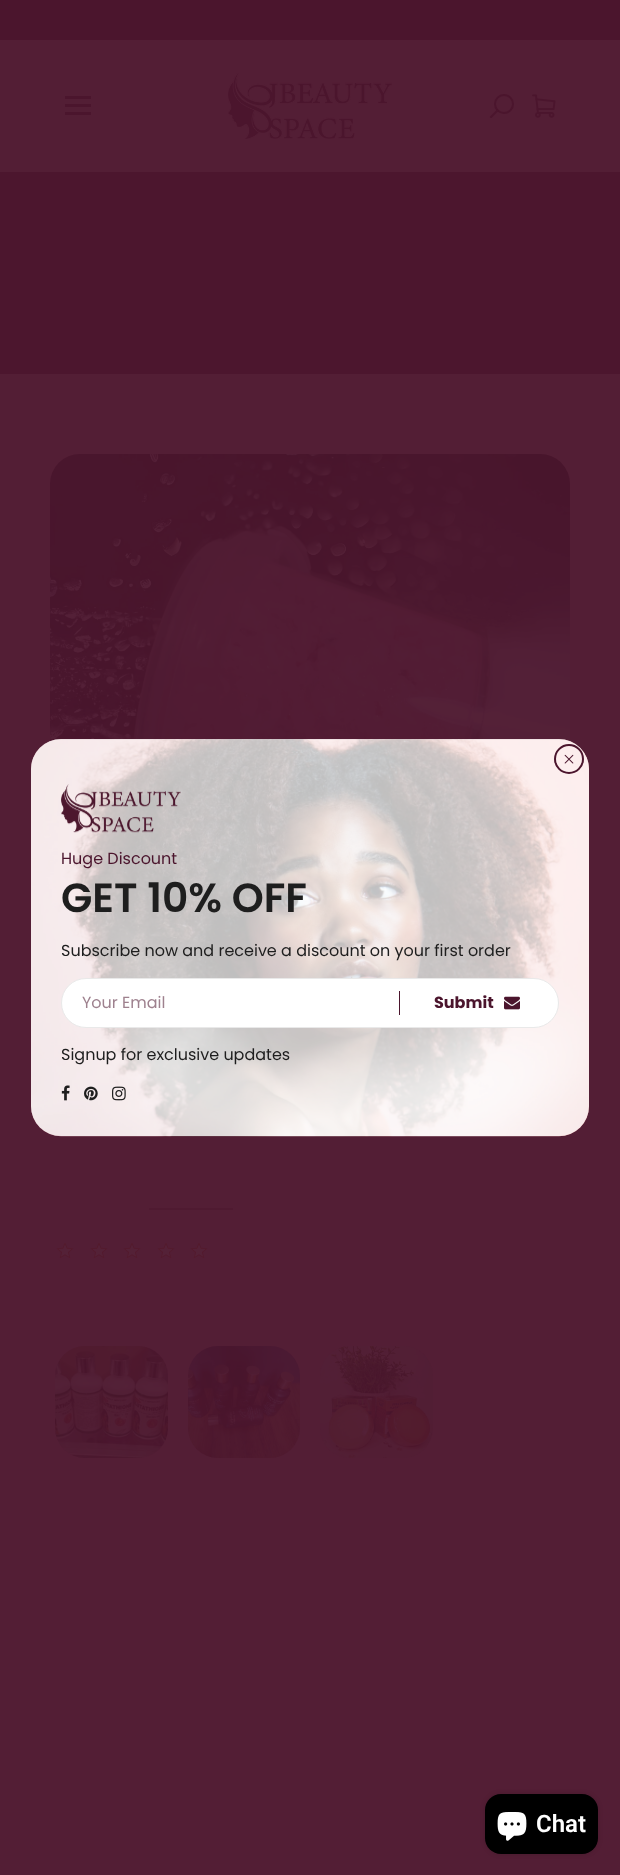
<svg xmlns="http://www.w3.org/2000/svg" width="620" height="1875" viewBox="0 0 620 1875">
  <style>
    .t1 { font: 16px Poppins; fill: #4b152d; }
    .t2 { font: 600 40.75px Poppins; fill: #1e1e1e; }
    .t3 { font: 16px Poppins; fill: #1e1e1e; }
    .t4 { font: 16px Poppins; fill: #9e818e; }
    .t5 { font: bold 16px Poppins; fill: #4b152d; }
    .t6 { font: 600 24px Roboto; fill: #fff; }
  </style>
  <rect width="100%" height="100%" fill="#531e35"/>
  <rect x="0" y="0" width="620" height="40" fill="#4b152d"/>
  <rect x="65" y="104" width="26" height="3" fill="#4b152d"/>
  <rect x="65" y="96" width="26" height="3" fill="#4b152d"/>
  <rect x="65" y="112" width="26" height="3" fill="#4b152d"/>
  <image x="228" y="73" width="164" height="66" href="images/1.png"/>
  <circle cx="504" cy="104" r="9" fill="none" stroke="#4b152d" stroke-width="2"/>
  <path d="M491 117L497.5 110.5" fill="none" stroke="#4b152d" stroke-width="2" stroke-linecap="round" stroke-linejoin="round"/>
  <image x="532" y="94" width="24" height="24" href="images/2.png"/>
  <rect x="0" y="172" width="620" height="202" fill="#4c162e"/>
  <image x="50" y="454" width="520" height="288" href="images/3.png"/>
  <rect x="149" y="1208" width="84" height="2" fill="#4f1a31"/>
  <image x="56" y="1243" width="18" height="15" href="images/4.png"/>
  <image x="90" y="1243" width="18" height="15" href="images/4.png"/>
  <image x="123" y="1243" width="18" height="15" href="images/4.png"/>
  <image x="157" y="1243" width="18" height="15" href="images/4.png"/>
  <image x="190" y="1243" width="18" height="15" href="images/4.png"/>
  <image x="55" y="1346" width="113" height="112" href="images/5.png"/>
  <image x="188" y="1346" width="112" height="112" href="images/6.png"/>
  <image x="320" y="1346" width="113" height="112" href="images/7.png"/>
  <image x="31" y="739" width="558" height="398" href="images/8.png"/>
  <rect x="31" y="739" width="558" height="397" rx="30" fill="#ffffffbf"/>
  <circle cx="569" cy="759" r="14" fill="none" stroke="#4b152d" stroke-width="2"/>
  <image x="564" y="754" width="10" height="10" href="images/9.png"/>
  <image x="61" y="784" width="120" height="49" href="images/10.png"/>
  <text x="61" y="864" class="t1">Huge Discount</text>
  <text x="61" y="912" class="t2">GET 10% OFF</text>
  <text x="61" y="956" class="t3">Subscribe now and receive a discount on your first order</text>
  <rect x="61.5" y="978.5" width="497" height="49" rx="24.5" fill="#fff" stroke="#e9e9e9"/>
  <text x="82" y="1008" class="t4">Your Email</text>
  <rect x="399" y="991" width="1" height="24" fill="#4b152d"/>
  <text x="434" y="1008" class="t5">Submit</text>
  <image x="504" y="996" width="16" height="14" href="images/11.png"/>
  <text x="61" y="1060" class="t3">Signup for exclusive updates</text>
  <image x="61" y="1085" width="9" height="16" href="images/12.png"/>
  <image x="84" y="1086" width="14" height="15" href="images/13.png"/>
  <image x="112" y="1086" width="14" height="15" href="images/14.png"/>
  <rect x="485" y="1794" width="113" height="60" rx="16" fill="#00000026" filter="blur(2.5px)"/>
  <rect x="485" y="1794" width="113" height="60" rx="16" fill="#000"/>
  <image x="497" y="1812" width="30" height="29" href="images/15.png"/>
  <text x="536" y="1832" class="t6">Chat</text>
</svg>
